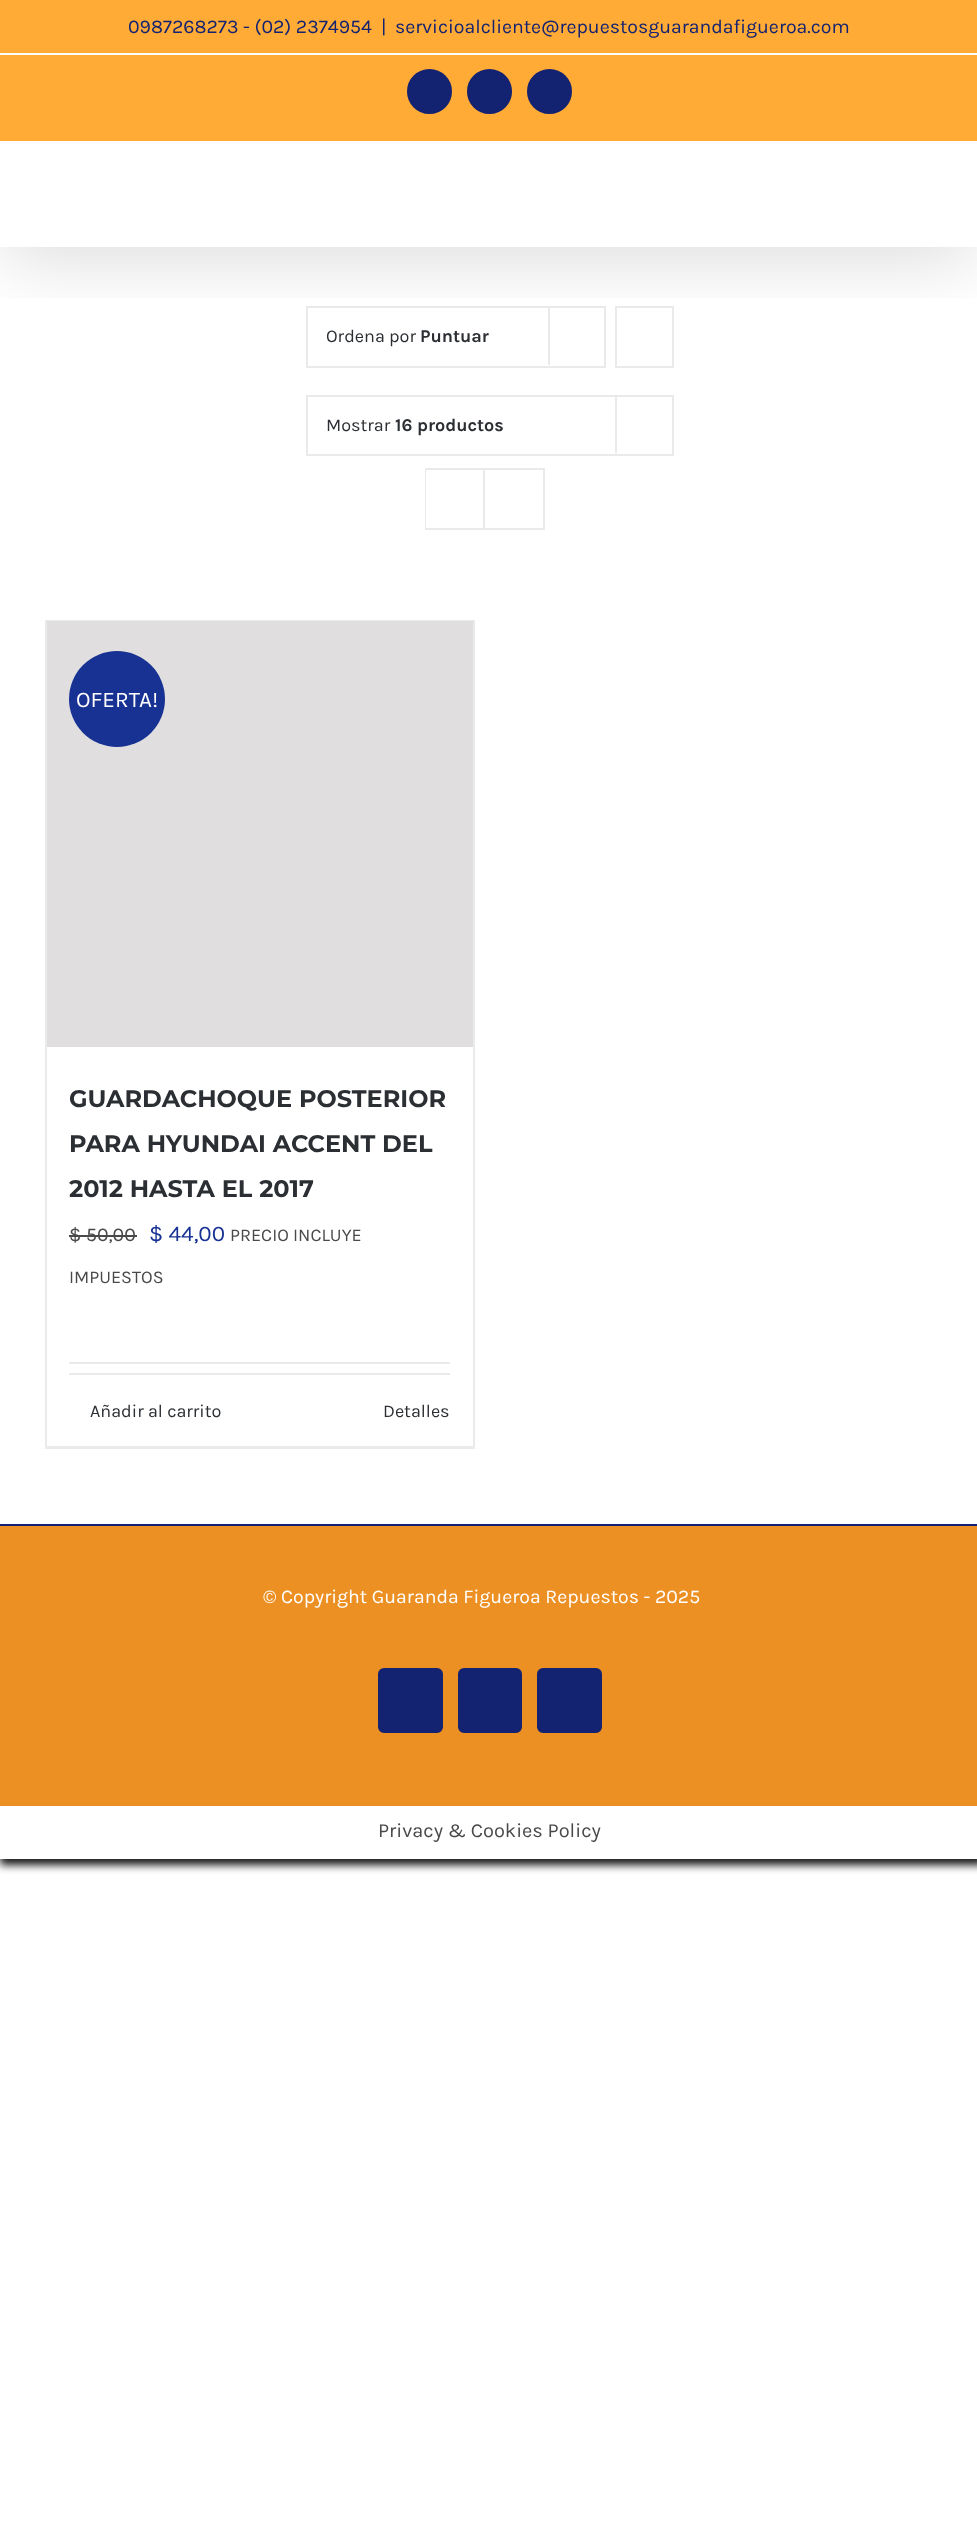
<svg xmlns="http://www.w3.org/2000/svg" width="977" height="2527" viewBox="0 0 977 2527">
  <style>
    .t1 { font: 19.5px Karla; fill: #142272; }
    .t2 { font: 18px Karla; fill: #2b2e32; }
    .t3 { font: bold 18px Karla; fill: #2b2e32; }
    .t4 { font: 22.5px Karla; fill: #fff; }
    .t5 { font: 100 24px Montserrat; fill: #2b2e32; }
    .t6 { font: 19.5px Karla; fill: #494949; }
    .t7 { font: 22.5px Karla; fill: #173293; }
    .t8 { font: 18px Karla; fill: #494949; }
    .t9 { font: 19.5px Karla; fill: #fff; }
    .t10 { font: 20px Karla; fill: #494949; }
  </style>
  <defs>
    <clipPath id="clip1"><rect x="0" y="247" width="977" height="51"/></clipPath>
    <clipPath id="clip2"><path d="M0 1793H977V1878H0ZM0 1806H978V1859H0Z" clip-rule="evenodd"/></clipPath>
  </defs>
  <rect width="100%" height="100%" fill="#fff"/>
  <rect x="307" y="307" width="298" height="60" fill="none" stroke="#eaeaea" stroke-width="2"/>
  <rect x="548" y="306" width="2" height="59" fill="#eaeaea"/>
  <rect x="616" y="307" width="57" height="60" fill="none" stroke="#eaeaea" stroke-width="2"/>
  <g clip-path="url(#clip1)">
    <rect x="3" y="18" width="972" height="240" fill="#00000024" filter="blur(37.5px)"/>
  </g>
  <rect x="0" y="0" width="977" height="141" fill="#ffab35"/>
  <rect x="0" y="53" width="977" height="2" fill="#fff"/>
  <text x="128" y="33" class="t1">0987268273 - (02) 2374954</text>
  <text x="381" y="33" class="t1">|</text>
  <text x="395" y="33" class="t1">servicioalcliente@repuestosguarandafigueroa.com</text>
  <circle cx="429.5" cy="91.5" r="21.5" fill="#142272" stroke="#142272" stroke-width="2"/>
  <circle cx="489.5" cy="91.5" r="21.5" fill="#142272" stroke="#142272" stroke-width="2"/>
  <circle cx="549.5" cy="91.5" r="21.5" fill="#142272" stroke="#142272" stroke-width="2"/>
  <rect x="0" y="246" width="977" height="1" fill="#fff"/>
  <text x="326" y="342" class="t2">Ordena por</text>
  <text x="420" y="342" class="t3">Puntuar</text>
  <rect x="307" y="396" width="366" height="59" fill="none" stroke="#eaeaea" stroke-width="2"/>
  <text x="326" y="431" class="t2">Mostrar</text>
  <text x="395" y="431" class="t3">16 productos</text>
  <rect x="615" y="395" width="2" height="58" fill="#eaeaea"/>
  <rect x="426" y="469" width="118" height="60" fill="none" stroke="#eaeaea" stroke-width="2"/>
  <rect x="426" y="470" width="1" height="58" fill="#fff"/>
  <rect x="483" y="470" width="2" height="58" fill="#eaeaea"/>
  <rect x="45" y="620" width="429" height="1" fill="#eaeaea"/>
  <rect x="473" y="620" width="2" height="829" fill="#eaeaea"/>
  <rect x="45" y="1446" width="429" height="3" fill="#eaeaea"/>
  <rect x="45" y="620" width="2" height="829" fill="#eaeaea"/>
  <rect x="47" y="621" width="426" height="426" fill="#e0dede"/>
  <circle cx="117" cy="699" r="48" fill="#173293"/>
  <text x="76" y="707" class="t4">OFERTA!</text>
  <text x="69" y="1107" class="t5">GUARDACHOQUE POSTERIOR</text>
  <text x="69" y="1152" class="t5">PARA HYUNDAI ACCENT DEL</text>
  <text x="69" y="1197" class="t5">2012 HASTA EL 2017</text>
  <text x="69" y="1241" class="t6">$ 50,00</text>
  <rect x="69" y="1235" width="68" height="2" fill="#494949"/>
  <text x="149" y="1241" class="t7">$ 44,00</text>
  <text x="230" y="1241" class="t8">PRECIO INCLUYE</text>
  <text x="69" y="1283" class="t8">IMPUESTOS</text>
  <rect x="69" y="1362" width="381" height="2" fill="#eaeaea"/>
  <rect x="69" y="1373" width="381" height="2" fill="#eaeaea"/>
  <text x="90" y="1417" class="t2">Añadir al carrito</text>
  <text x="383" y="1417" class="t2">Detalles</text>
  <g clip-path="url(#clip2)">
    <rect x="0" y="1806" width="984" height="59" fill="#161616" filter="blur(4px)"/>
  </g>
  <rect x="0" y="1526" width="977" height="280" fill="#ec9023"/>
  <rect x="0" y="1524" width="977" height="2" fill="#142272"/>
  <text x="263" y="1603" class="t9">© Copyright Guaranda Figueroa Repuestos - 2025</text>
  <rect x="379" y="1669" width="63" height="63" rx="5" fill="#142272" stroke="#142272" stroke-width="2"/>
  <rect x="459" y="1669" width="62" height="63" rx="5" fill="#142272" stroke="#142272" stroke-width="2"/>
  <rect x="538" y="1669" width="63" height="63" rx="5" fill="#142272" stroke="#142272" stroke-width="2"/>
  <text x="378" y="1837" class="t10">Privacy &amp; Cookies Policy</text>
</svg>
